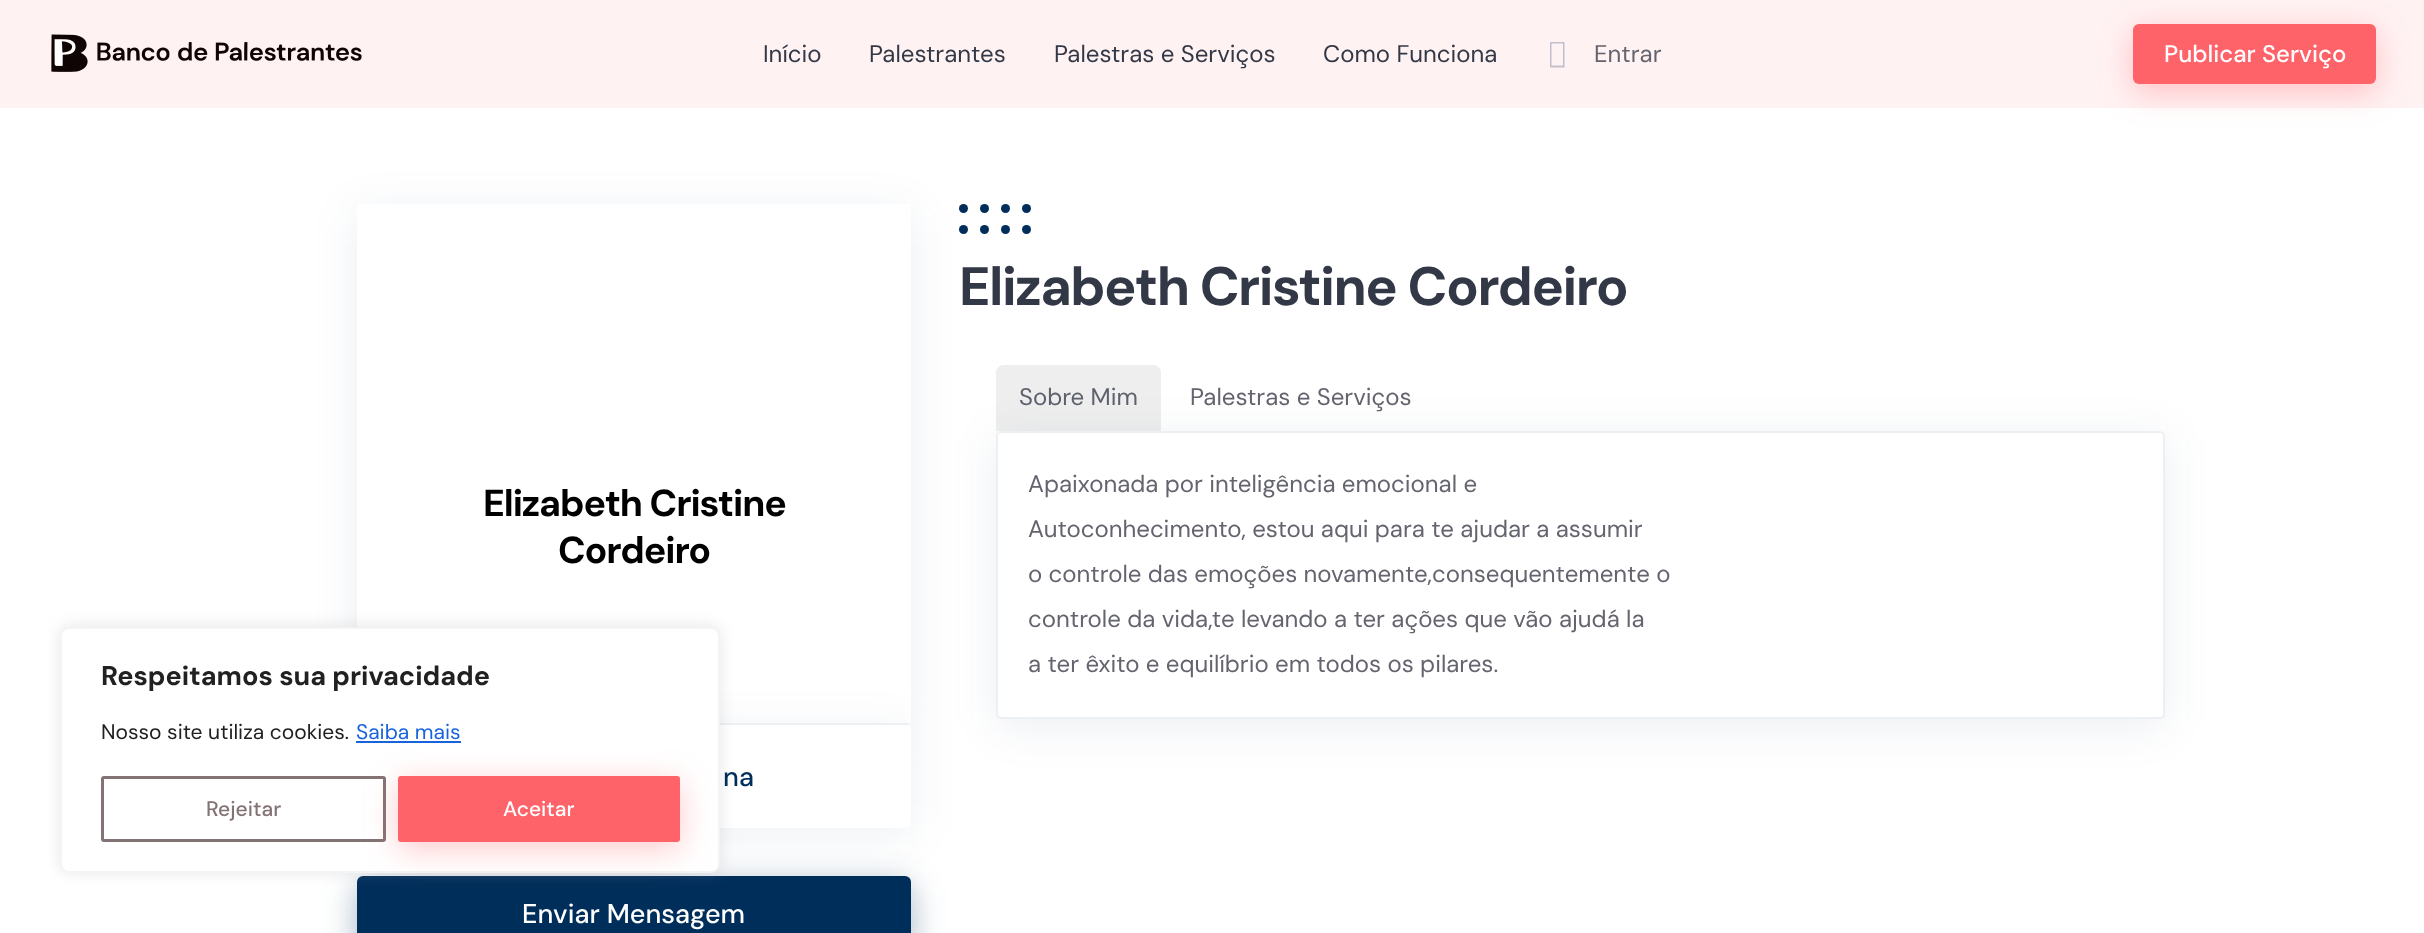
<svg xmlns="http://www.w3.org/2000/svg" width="2424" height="933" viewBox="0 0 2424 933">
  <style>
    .t1 { font: bold 27px DM Sans; fill: #212121; }
    .t2 { font: 21px DM Sans; fill: #212121; }
    .t3 { font: 21px DM Sans; fill: #1863dc; }
    .t4 { font: 500 21px DM Sans; fill: #837374; }
    .t5 { font: 500 21px DM Sans; fill: #fff; }
    .t6 { font: 24px DM Sans; fill: #333846; }
    .t7 { font: 24px DM Sans; fill: #63646e; }
    .t8 { font: 500 24px DM Sans; fill: #fff; }
    .t9 { font: bold 37.5px DM Sans; letter-spacing: -1.1px; fill: #000; }
    .t10 { font: 500 27px DM Sans; fill: #002e5b; }
    .t11 { font: 500 27px DM Sans; fill: #fff; }
    .t12 { font: bold 54px DM Sans; letter-spacing: -1.5px; fill: #333846; }
    .t13 { font: 24px DM Sans; fill: #5d626d; }
  </style>
  <rect width="100%" height="100%" fill="#fff"/>
  <rect x="357" y="212" width="554" height="519" fill="#07245614" filter="blur(22.5px)"/>
  <rect x="357" y="204" width="554" height="519" fill="#fff"/>
  <rect x="357" y="731" width="554" height="105" rx="6" fill="#07245612" filter="blur(22.5px)"/>
  <rect x="357" y="723" width="554" height="105" rx="6" fill="#fff"/>
  <rect x="720" y="723" width="188" height="2" fill="#07245612"/>
  <rect x="357" y="884" width="554" height="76" rx="6" fill="#002e5b59" filter="blur(16px)"/>
  <rect x="357" y="876" width="554" height="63" rx="6" fill="#002e5b"/>
  <rect x="60" y="626" width="660" height="246" rx="9" fill="#acabab4d" filter="blur(7.5px)"/>
  <rect x="61" y="628" width="658" height="244" rx="8" fill="#fff" stroke="#f4f4f4" stroke-width="2"/>
  <text x="101" y="685" class="t1">Respeitamos sua privacidade</text>
  <text x="101" y="739" class="t2">Nosso site utiliza cookies.</text>
  <text x="356" y="739" class="t3">Saiba mais</text>
  <rect x="356" y="741" width="105" height="2" fill="#1863dc"/>
  <rect x="102.5" y="777.5" width="282" height="63" rx="1.5" fill="none" stroke="#837374" stroke-width="3"/>
  <text x="206" y="816" class="t4">Rejeitar</text>
  <rect x="398" y="783" width="282" height="66" rx="3" fill="#ff636a59" filter="blur(16px)"/>
  <rect x="399.5" y="777.5" width="279" height="63" rx="1.5" fill="#ff636a" stroke="#ff636a" stroke-width="3"/>
  <text x="503" y="816" class="t5">Aceitar</text>
  <rect x="0" y="0" width="2424" height="108" fill="#fff2f3"/>
  <image x="51" y="34" width="311" height="38" href="images/1.png"/>
  <text x="763" y="62" class="t6">Início</text>
  <text x="869" y="62" class="t6">Palestrantes</text>
  <text x="1054" y="62" class="t6">Palestras e Serviços</text>
  <text x="1323" y="62" class="t6">Como Funciona</text>
  <path d="M1550 67.5V42H1564.5V67.5ZM1551.5 65.5H1563V43.5H1551.5Z" fill="#c1bfcc"/>
  <text x="1594" y="62" class="t7">Entrar</text>
  <rect x="2133" y="32" width="243" height="60" rx="6" fill="#ff636a59" filter="blur(16px)"/>
  <rect x="2133" y="24" width="243" height="60" rx="6" fill="#ff636a"/>
  <text x="2164" y="62" class="t8">Publicar Serviço</text>
  <text x="483" y="516" class="t9">Elizabeth Cristine</text>
  <text x="558" y="563" class="t9">Cordeiro</text>
  <text x="723" y="786" class="t10">na</text>
  <text x="522" y="923" class="t11">Enviar Mensagem</text>
  <circle cx="1026.5" cy="229.5" r="4.5" fill="#002e5b"/>
  <circle cx="1005.5" cy="229.5" r="4.5" fill="#002e5b"/>
  <circle cx="984.5" cy="229.5" r="4.5" fill="#002e5b"/>
  <circle cx="963.5" cy="229.5" r="4.5" fill="#002e5b"/>
  <circle cx="1026.5" cy="208.5" r="4.5" fill="#002e5b"/>
  <circle cx="1005.5" cy="208.5" r="4.5" fill="#002e5b"/>
  <circle cx="984.5" cy="208.5" r="4.5" fill="#002e5b"/>
  <circle cx="963.5" cy="208.5" r="4.5" fill="#002e5b"/>
  <text x="959" y="305" class="t12">Elizabeth Cristine Cordeiro</text>
  <path d="M1004 365H1153C1157.5 365 1161 368.5 1161 373V431H996V373C996 368.5 999.5 365 1004 365Z" fill="#eee"/>
  <text x="1019" y="405" class="t13">Sobre Mim</text>
  <text x="1190" y="405" class="t7">Palestras e Serviços</text>
  <rect x="996" y="438" width="1169" height="288" rx="5" fill="#07245614" filter="blur(22.5px)"/>
  <rect x="996" y="431" width="1169" height="288" rx="5" fill="#fff"/>
  <rect x="997" y="432" width="1167" height="286" rx="4" fill="none" stroke="#07245612" stroke-width="2"/>
  <text x="1028" y="492" class="t7">Apaixonada por inteligência emocional e</text>
  <text x="1028" y="537" class="t7">Autoconhecimento, estou aqui para te ajudar a assumir</text>
  <text x="1028" y="582" class="t7">o controle das emoções novamente,consequentemente o</text>
  <text x="1028" y="627" class="t7">controle da vida,te levando a ter ações que vão ajudá la</text>
  <text x="1028" y="672" class="t7">a ter êxito e equilíbrio em todos os pilares.</text>
</svg>
